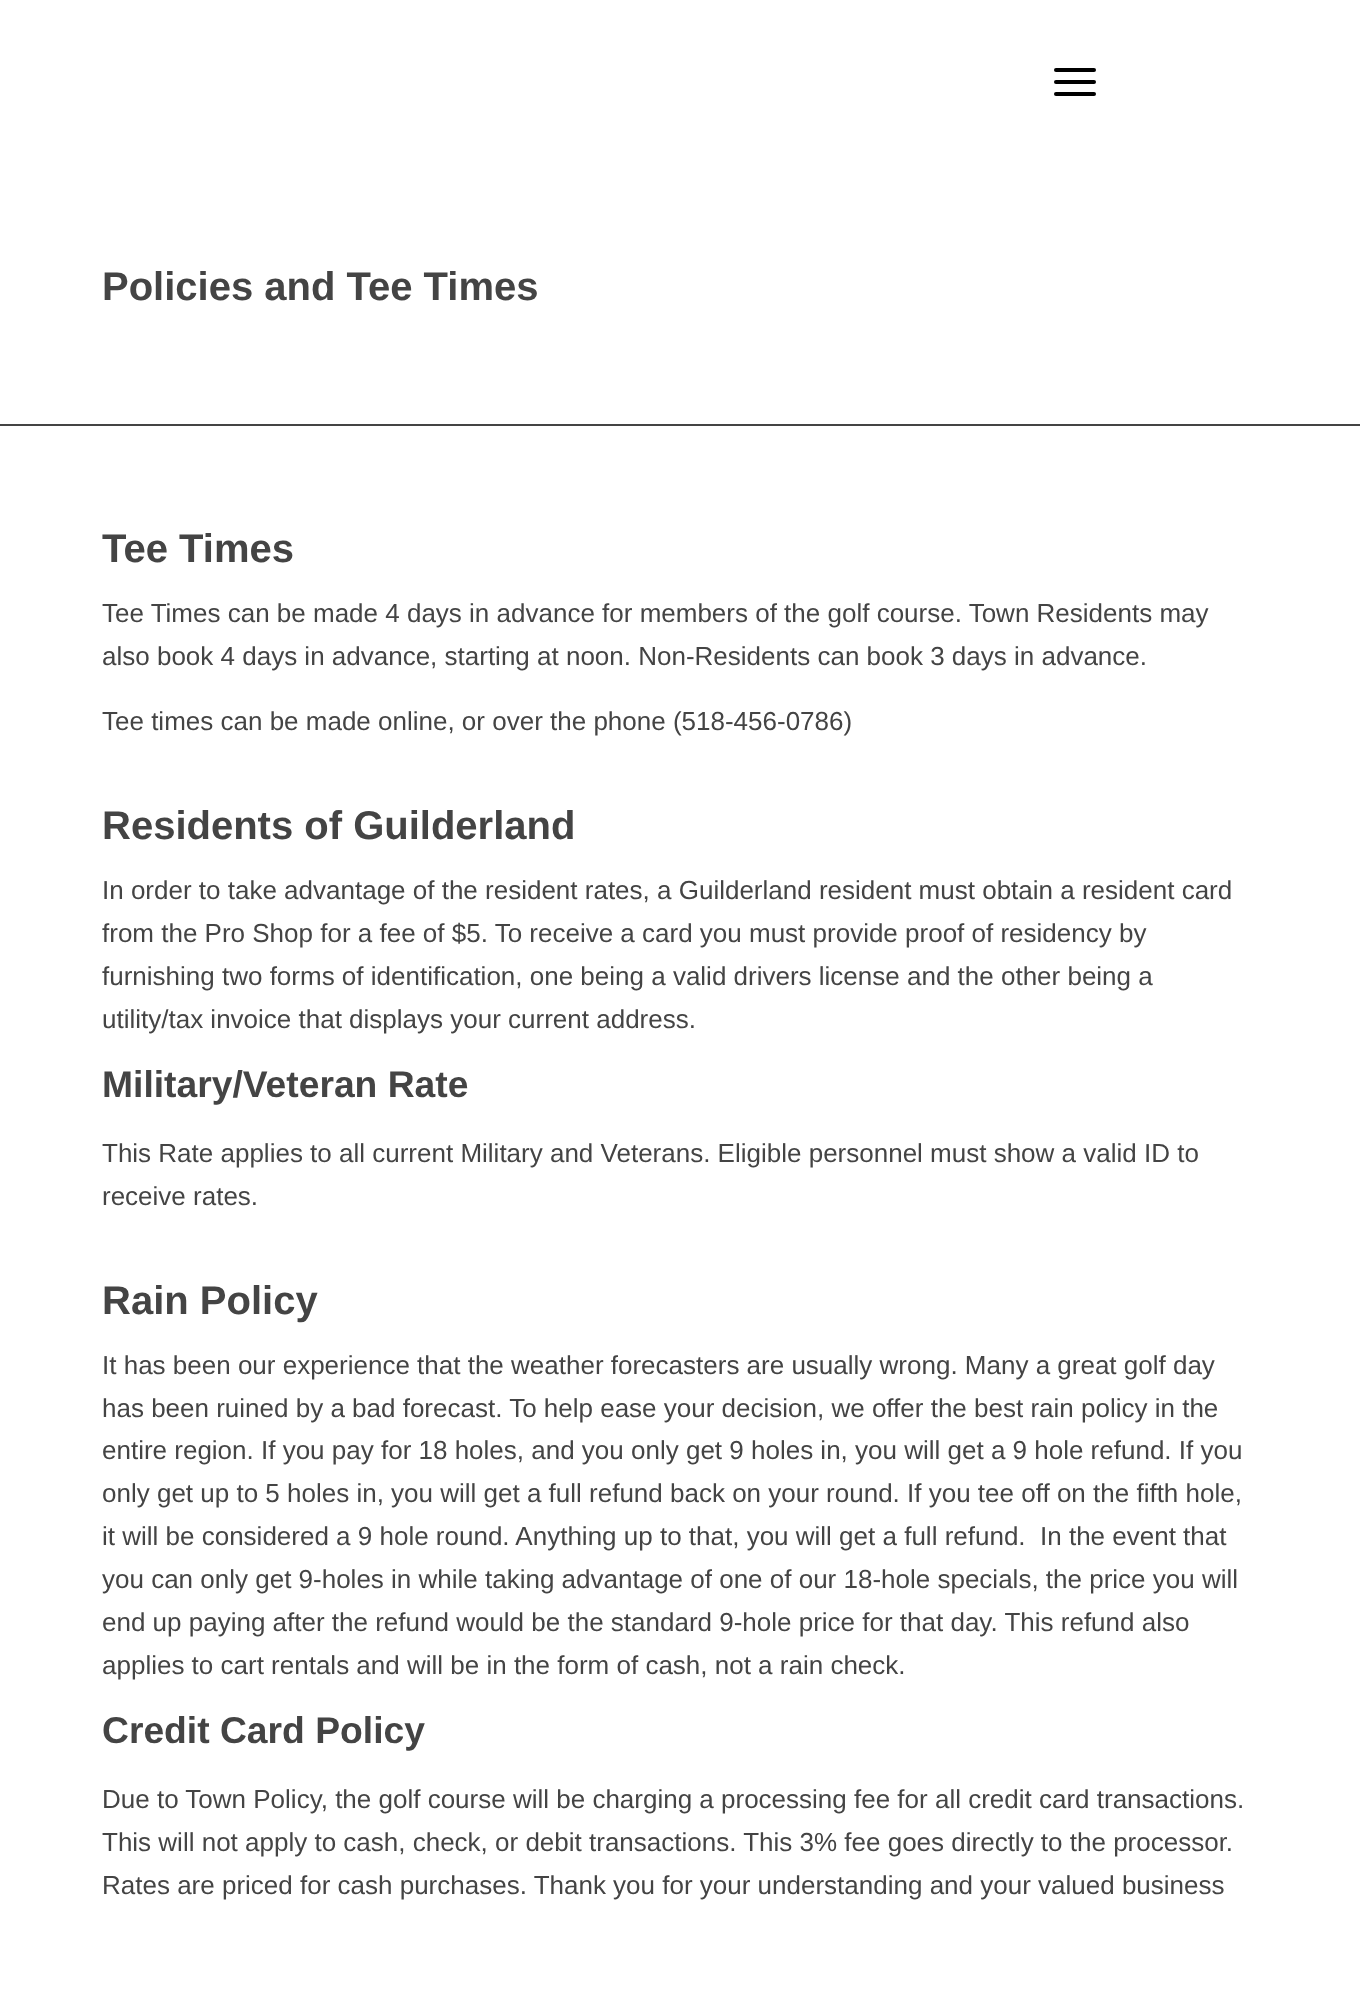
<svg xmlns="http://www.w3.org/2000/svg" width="1360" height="2015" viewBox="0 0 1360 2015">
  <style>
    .t1 { font: bold 40px Liberation Sans; fill: #444; }
    .t2 { font: 26px Liberation Sans; fill: #444; }
    .t3 { font: bold 37.25px Liberation Sans; fill: #444; }
  </style>
  <rect width="100%" height="100%" fill="#fff"/>
  <rect x="1054" y="80" width="42" height="4" rx="2" fill="#000"/>
  <rect x="1054" y="68" width="42" height="4" rx="2" fill="#000"/>
  <rect x="1054" y="92" width="42" height="4" rx="2" fill="#000"/>
  <text x="102" y="300" class="t1">Policies and Tee Times</text>
  <rect x="0" y="424" width="1360" height="2" fill="#444"/>
  <text x="102" y="562" class="t1">Tee Times</text>
  <text x="102" y="622" class="t2">Tee Times can be made 4 days in advance for members of the golf course. Town Residents may</text>
  <text x="102" y="665" class="t2">also book 4 days in advance, starting at noon. Non-Residents can book 3 days in advance.</text>
  <text x="102" y="730" class="t2">Tee times can be made online, or over the phone (518-456-0786)</text>
  <text x="102" y="839" class="t1">Residents of Guilderland</text>
  <text x="102" y="899" class="t2">In order to take advantage of the resident rates, a Guilderland resident must obtain a resident card</text>
  <text x="102" y="942" class="t2">from the Pro Shop for a fee of $5. To receive a card you must provide proof of residency by</text>
  <text x="102" y="985" class="t2">furnishing two forms of identification, one being a valid drivers license and the other being a</text>
  <text x="102" y="1028" class="t2">utility/tax invoice that displays your current address.</text>
  <text x="102" y="1097" class="t3">Military/Veteran Rate</text>
  <text x="102" y="1162" class="t2">This Rate applies to all current Military and Veterans. Eligible personnel must show a valid ID to</text>
  <text x="102" y="1205" class="t2">receive rates.</text>
  <text x="102" y="1314" class="t1">Rain Policy</text>
  <text x="102" y="1374" class="t2">It has been our experience that the weather forecasters are usually wrong. Many a great golf day</text>
  <text x="102" y="1417" class="t2">has been ruined by a bad forecast. To help ease your decision, we offer the best rain policy in the</text>
  <text x="102" y="1459" class="t2">entire region. If you pay for 18 holes, and you only get 9 holes in, you will get a 9 hole refund. If you</text>
  <text x="102" y="1502" class="t2">only get up to 5 holes in, you will get a full refund back on your round. If you tee off on the fifth hole,</text>
  <text x="102" y="1545" class="t2" xml:space="preserve">it will be considered a 9 hole round. Anything up to that, you will get a full refund.  In the event that</text>
  <text x="102" y="1588" class="t2">you can only get 9-holes in while taking advantage of one of our 18-hole specials, the price you will</text>
  <text x="102" y="1631" class="t2">end up paying after the refund would be the standard 9-hole price for that day. This refund also</text>
  <text x="102" y="1674" class="t2">applies to cart rentals and will be in the form of cash, not a rain check.</text>
  <text x="102" y="1743" class="t3">Credit Card Policy</text>
  <text x="102" y="1808" class="t2">Due to Town Policy, the golf course will be charging a processing fee for all credit card transactions.</text>
  <text x="102" y="1851" class="t2">This will not apply to cash, check, or debit transactions. This 3% fee goes directly to the processor.</text>
  <text x="102" y="1894" class="t2">Rates are priced for cash purchases. Thank you for your understanding and your valued business</text>
</svg>
